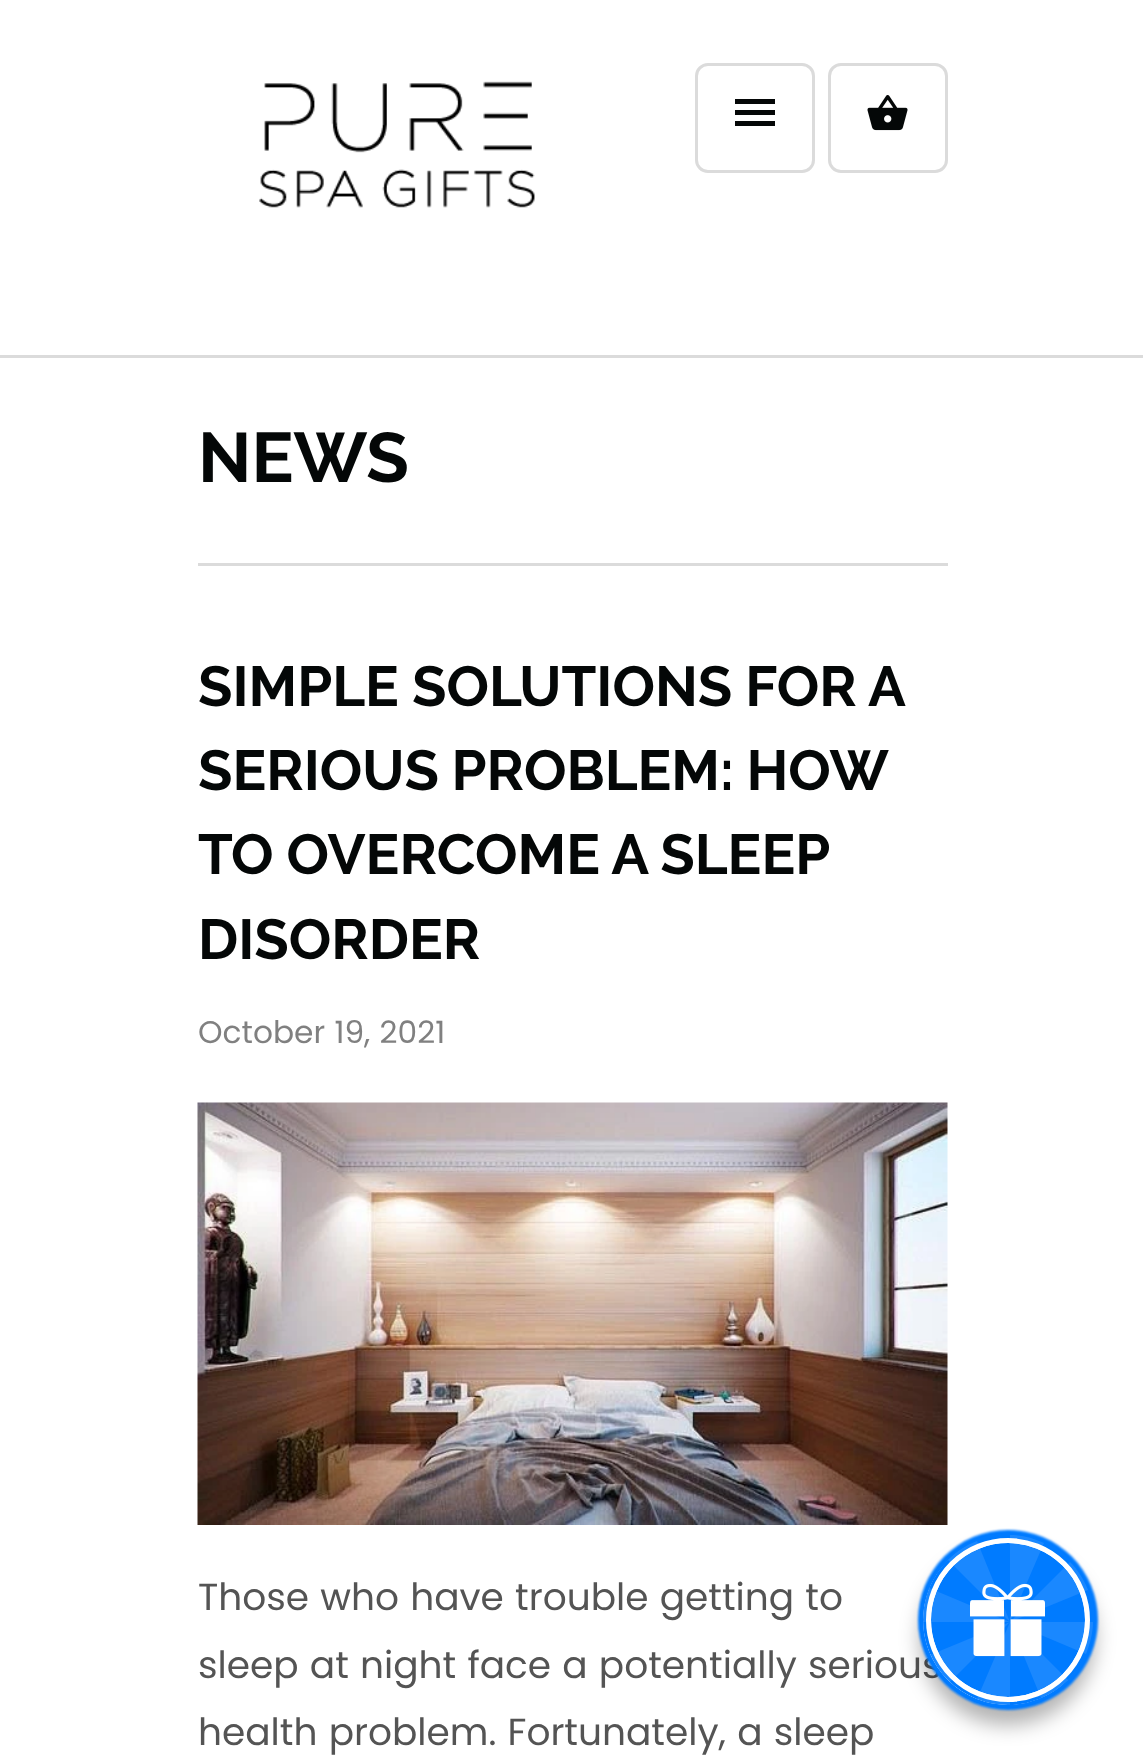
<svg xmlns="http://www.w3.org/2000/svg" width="1143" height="1757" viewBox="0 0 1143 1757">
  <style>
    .t1 { font: bold 70px Raleway; fill: #040707; }
    .t2 { font: bold 56.25px Raleway; fill: #040707; }
    .t3 { font: 31.25px Poppins; fill: #808080; }
    .t4 { font: 37.5px Poppins; fill: #545454; }
  </style>
  <rect width="100%" height="100%" fill="#fff"/>
  <rect x="0" y="355" width="1143" height="3" fill="#dbdbdb"/>
  <image x="259" y="81" width="276" height="127" href="images/1.png"/>
  <rect x="696.5" y="64.5" width="117" height="107" rx="11.5" fill="none" stroke="#dbdbdb" stroke-width="3"/>
  <path d="M735 126H775V121H735ZM735 115H775V110H735ZM735 99V104H775V99Z" fill="#040707"/>
  <rect x="829.5" y="64.5" width="117" height="107" rx="11.5" fill="none" stroke="#dbdbdb" stroke-width="3"/>
  <image x="867" y="95" width="41" height="36" href="images/2.png"/>
  <rect x="198" y="563" width="750" height="3" fill="#dbdbdb"/>
  <text x="198" y="482" class="t1">NEWS</text>
  <text x="198" y="706" word-spacing="-0.5" class="t2">SIMPLE SOLUTIONS FOR A</text>
  <text x="198" y="790" word-spacing="-1" class="t2">SERIOUS PROBLEM: HOW</text>
  <text x="198" y="874" word-spacing="-0.5" class="t2">TO OVERCOME A SLEEP</text>
  <text x="198" y="959" class="t2">DISORDER</text>
  <text x="198" y="1043" class="t3">October 19, 2021</text>
  <image x="197" y="1102" width="751" height="423" href="images/3.png"/>
  <text x="198" y="1610" class="t4">Those who have trouble getting to</text>
  <text x="198" y="1678" class="t4">sleep at night face a potentially serious</text>
  <text x="198" y="1745" class="t4">health problem. Fortunately, a sleep</text>
  <rect x="920" y="1550" width="175" height="175" rx="87.5" fill="#0000004d" filter="blur(10px)"/>
  <rect x="918" y="1530" width="180" height="180" rx="90" fill="#007bff" filter="blur(1px)"/>
  <circle cx="1007.5" cy="1620.5" r="87.5" fill="#007bff"/>
  <circle cx="1008" cy="1620" r="81" fill="none" stroke="#fff" stroke-width="8"/>
  <circle cx="1008" cy="1620" r="81" fill="none" stroke="#fff" stroke-width="8"/>
  <circle cx="1008" cy="1620" r="83.5" fill="none" stroke="#007bff" stroke-width="3"/>
  <circle cx="1007.5" cy="1620.5" r="86" fill="none" stroke="#007bff" stroke-width="3"/>
  <path d="M977 1541C966 1545 956 1552 948 1560L1010 1622L929 1588C925 1599 923 1611 923 1622H1010L930 1655C935 1665 942 1674 950 1682L1010 1622L977 1699C988 1703 999 1705 1010 1705V1622L1041 1698C1051 1694 1060 1688 1068 1680L1010 1622L1086 1654C1090 1644 1093 1633 1093 1622H1010L1088 1590C1084 1580 1078 1570 1070 1562L1010 1622L1044 1543C1033 1538 1022 1535 1010 1535V1622Z" fill="#ffffff1a"/>
  <image x="970" y="1583" width="75" height="74" href="images/4.png"/>
</svg>
